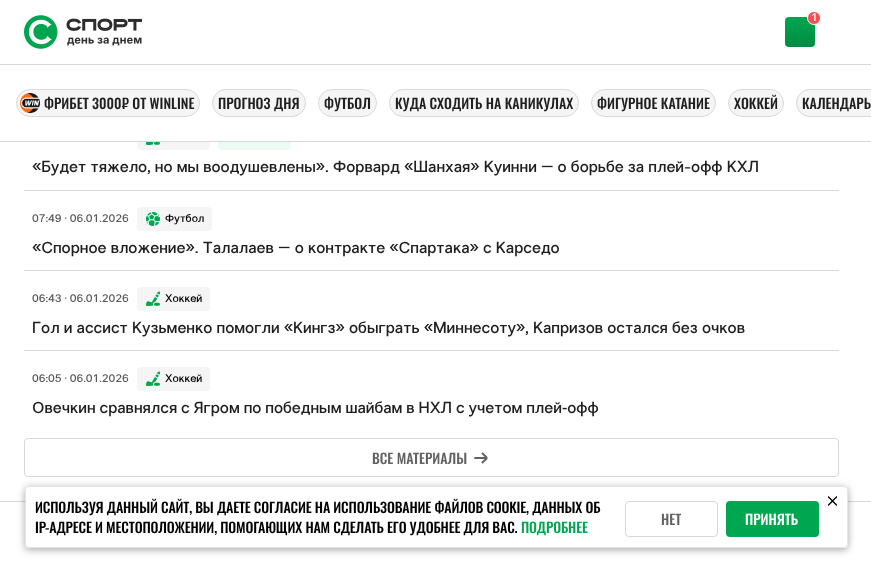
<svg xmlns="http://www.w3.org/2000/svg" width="871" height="568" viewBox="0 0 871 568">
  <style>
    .t1 { font: 600 11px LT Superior; fill: #fff; }
    .t2 { font: 500 14px Oswald; fill: #1f1f1f; }
    .t3 { font: 600 16px LT Superior; fill: #1f1f1f; }
    .t4 { font: 600 11px LT Superior; fill: #595959; }
    .t5 { font: 600 11px LT Superior; fill: #000; }
    .t6 { font: 500 14px Oswald; fill: #636363; }
    .t7 { font: 500 14px Oswald; letter-spacing: -0.15px; fill: #000; }
    .t8 { font: 500 14px Oswald; letter-spacing: -0.15px; fill: #00a650; }
    .t9 { font: 500 14px Oswald; fill: #fff; }
  </style>
  <defs>
    <linearGradient id="g1" gradientUnits="userSpaceOnUse" x1="800" y1="17" x2="800" y2="47"><stop offset="0" stop-color="#00a650"/><stop offset="1" stop-color="#008c44"/></linearGradient>
  </defs>
  <rect width="100%" height="100%" fill="#fff"/>
  <rect x="0" y="64" width="871" height="1" fill="#d8d8d8"/>
  <image x="24" y="15" width="118" height="34" href="images/1.png"/>
  <rect x="785" y="17" width="30" height="30" rx="4" fill="url(#g1)"/>
  <circle cx="814" cy="18" r="6.5" fill="#ff4d4f" stroke="#fff"/>
  <text x="811" y="21" class="t1">1</text>
  <rect x="137" y="126" width="73" height="24" rx="4" fill="#f5f5f5"/>
  <rect x="218" y="126" width="73" height="24" rx="4" fill="#edf9f3"/>
  <rect x="137" y="126" width="154" height="15" fill="#fff"/>
  <rect x="0" y="141" width="871" height="1" fill="#d8d8d8"/>
  <rect x="16.5" y="89.5" width="183" height="27" rx="13.5" fill="#f5f5f5" stroke="#d9d9d9"/>
  <image x="20" y="93" width="20" height="20" href="images/2.png"/>
  <text x="44" y="109" class="t2">ФРИБЕТ 3000₽ ОТ WINLINE</text>
  <rect x="212.5" y="89.5" width="93" height="27" rx="13.5" fill="#f5f5f5" stroke="#d9d9d9"/>
  <text x="218" y="109" class="t2">ПРОГНОЗ ДНЯ</text>
  <rect x="318.5" y="89.5" width="58" height="27" rx="13.5" fill="#f5f5f5" stroke="#d9d9d9"/>
  <text x="324" y="109" class="t2">ФУТБОЛ</text>
  <rect x="389.5" y="89.5" width="189" height="27" rx="13.5" fill="#f5f5f5" stroke="#d9d9d9"/>
  <text x="395" y="109" class="t2">КУДА СХОДИТЬ НА КАНИКУЛАХ</text>
  <rect x="591.5" y="89.5" width="124" height="27" rx="13.5" fill="#f5f5f5" stroke="#d9d9d9"/>
  <text x="597" y="109" class="t2">ФИГУРНОЕ КАТАНИЕ</text>
  <rect x="728.5" y="89.5" width="55" height="27" rx="13.5" fill="#f5f5f5" stroke="#d9d9d9"/>
  <text x="734" y="109" class="t2">ХОККЕЙ</text>
  <path d="M810 89H871V117H810C802.5 117 796 110.5 796 103C796 95.5 802.5 89 810 89Z" fill="#f5f5f5"/>
  <rect x="796.5" y="89.5" width="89" height="27" rx="13.5" fill="none" stroke="#d9d9d9"/>
  <text x="802" y="109" class="t2">КАЛЕНДАРЬ</text>
  <rect x="0" y="501" width="871" height="1" fill="#d8d8d8"/>
  <rect x="24" y="190" width="815" height="1" fill="#d8d8d8"/>
  <image x="146" y="142" width="14" height="3" href="images/3.png"/>
  <text x="32" y="172" class="t3">«Будет тяжело, но мы воодушевлены». Форвард «Шанхая» Куинни – о борьбе за плей-офф КХЛ</text>
  <rect x="24" y="270" width="815" height="1" fill="#d8d8d8"/>
  <text x="32" y="222" class="t4">07:49 · 06.01.2026</text>
  <rect x="137" y="207" width="75" height="24" rx="4" fill="#f5f5f5"/>
  <image x="146" y="212" width="14" height="14" href="images/4.png"/>
  <text x="165" y="222" class="t5">Футбол</text>
  <text x="32" y="253" class="t3">«Спорное вложение». Талалаев – о контракте «Спартака» с Карседо</text>
  <rect x="24" y="350" width="815" height="1" fill="#d8d8d8"/>
  <text x="32" y="302" class="t4">06:43 · 06.01.2026</text>
  <rect x="137" y="287" width="73" height="24" rx="4" fill="#f5f5f5"/>
  <image x="146" y="291" width="15" height="15" href="images/5.png"/>
  <text x="165" y="302" class="t5">Хоккей</text>
  <text x="32" y="333" class="t3">Гол и ассист Кузьменко помогли «Кингз» обыграть «Миннесоту», Капризов остался без очков</text>
  <text x="32" y="382" class="t4">06:05 · 06.01.2026</text>
  <rect x="137" y="367" width="73" height="24" rx="4" fill="#f5f5f5"/>
  <image x="146" y="371" width="15" height="15" href="images/5.png"/>
  <text x="165" y="382" class="t5">Хоккей</text>
  <text x="32" y="413" word-spacing="-0.25" class="t3">Овечкин сравнялся с Ягром по победным шайбам в НХЛ с учетом плей‑офф</text>
  <rect x="24.5" y="438.5" width="814" height="38" rx="3.5" fill="none" stroke="#d8d8d8"/>
  <text x="372" y="464" class="t6">ВСЕ МАТЕРИАЛЫ</text>
  <image x="474" y="452" width="14" height="12" href="images/6.png"/>
  <rect x="25" y="490" width="823" height="62" rx="4" fill="#0000000d" filter="blur(4px)"/>
  <rect x="25" y="488" width="823" height="62" rx="4" fill="#00000033" filter="blur(3px)"/>
  <rect x="25" y="486" width="823" height="62" rx="4" fill="#0000001a" filter="blur(5px)"/>
  <rect x="25" y="486" width="823" height="62" rx="4" fill="#fff"/>
  <rect x="25.5" y="486.5" width="822" height="61" rx="3.5" fill="none" stroke="#0000001a"/>
  <text x="35" y="513" class="t7">ИСПОЛЬЗУЯ ДАННЫЙ САЙТ, ВЫ ДАЕТЕ СОГЛАСИЕ НА ИСПОЛЬЗОВАНИЕ ФАЙЛОВ COOKIE, ДАННЫХ ОБ</text>
  <text x="35" y="533" class="t7">IP-АДРЕСЕ И МЕСТОПОЛОЖЕНИИ, ПОМОГАЮЩИХ НАМ СДЕЛАТЬ ЕГО УДОБНЕЕ ДЛЯ ВАС.</text>
  <text x="521" y="533" class="t8">ПОДРОБНЕЕ</text>
  <rect x="625.5" y="501.5" width="92" height="35" rx="3.5" fill="none" stroke="#d8d8d8"/>
  <text x="661" y="525" class="t6">НЕТ</text>
  <rect x="726" y="501" width="93" height="36" rx="4" fill="#00a650"/>
  <text x="745" y="525" class="t9">ПРИНЯТЬ</text>
  <image x="827" y="496" width="11" height="10" href="images/7.png"/>
</svg>
